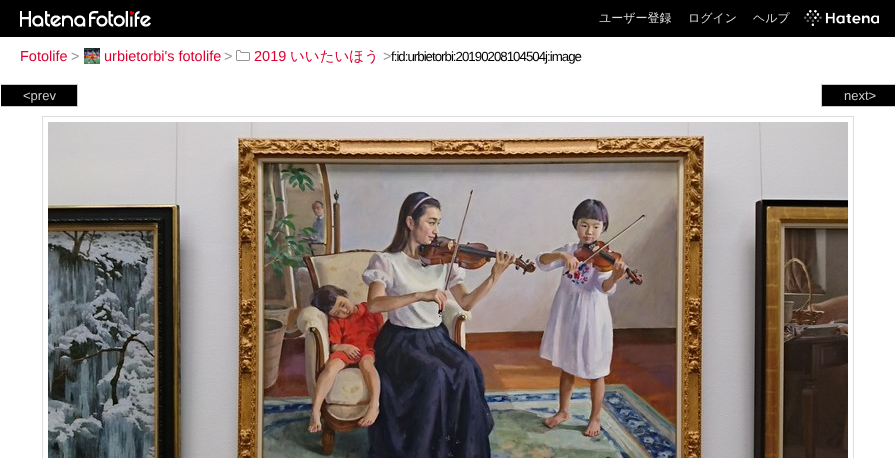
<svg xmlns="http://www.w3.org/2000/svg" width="895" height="458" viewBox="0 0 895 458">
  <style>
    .t1 { font: 500 12px WenQuanYi Zen Hei; fill: #ddd; }
    .t2 { font: 14.5px Liberation Sans; fill: #de002f; }
    .t3 { font: 14.5px Liberation Sans; fill: #999; }
    .t4 { font: 500 14.5px WenQuanYi Zen Hei; fill: #de002f; }
    .t5 { font: 13.3px Liberation Sans; letter-spacing: -1px; fill: #000; }
    .t6 { font: 13px Liberation Sans; fill: #ccc; }
  </style>
  <rect width="100%" height="100%" fill="#fff"/>
  <rect x="0" y="0" width="895" height="37" fill="#000"/>
  <image x="20" y="11" width="66" height="16" href="images/1.png"/>
  <image x="89" y="11" width="62" height="16" href="images/2.png"/>
  <text x="599" y="22" class="t1">ユーザー登録</text>
  <text x="688" y="22" class="t1">ログイン</text>
  <text x="753" y="22" class="t1">ヘルプ</text>
  <image x="804" y="10" width="75" height="16" href="images/3.png"/>
  <text x="20" y="61" class="t2">Fotolife</text>
  <text x="71" y="61" class="t3">&gt;</text>
  <image x="84" y="48" width="16" height="16" href="images/4.png"/>
  <text x="104" y="61" class="t2">urbietorbi's fotolife</text>
  <text x="224" y="61" class="t3">&gt;</text>
  <image x="236" y="50" width="14" height="11" href="images/5.png"/>
  <text x="254" y="61" class="t2">2019</text>
  <text x="290" y="61" class="t4">いいたいほう</text>
  <text x="383" y="61" class="t3">&gt;</text>
  <text x="391" y="61" class="t5">f:id:urbietorbi:20190208104504j:image</text>
  <rect x="1" y="85" width="76" height="21" fill="#000"/>
  <rect x="1" y="84" width="77" height="1" fill="#ccc"/>
  <rect x="77" y="84" width="1" height="23" fill="#ccc"/>
  <rect x="1" y="106" width="77" height="1" fill="#ccc"/>
  <text x="23" y="100" class="t6">&lt;prev</text>
  <rect x="822" y="85" width="73" height="21" fill="#000"/>
  <rect x="821" y="84" width="74" height="1" fill="#ccc"/>
  <rect x="821" y="106" width="74" height="1" fill="#ccc"/>
  <rect x="821" y="84" width="1" height="23" fill="#ccc"/>
  <text x="844" y="100" class="t6">next&gt;</text>
  <rect x="42.5" y="116.5" width="811" height="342" fill="none" stroke="#dedede"/>
  <image x="48" y="122" width="800" height="336" href="images/6.png"/>
</svg>
